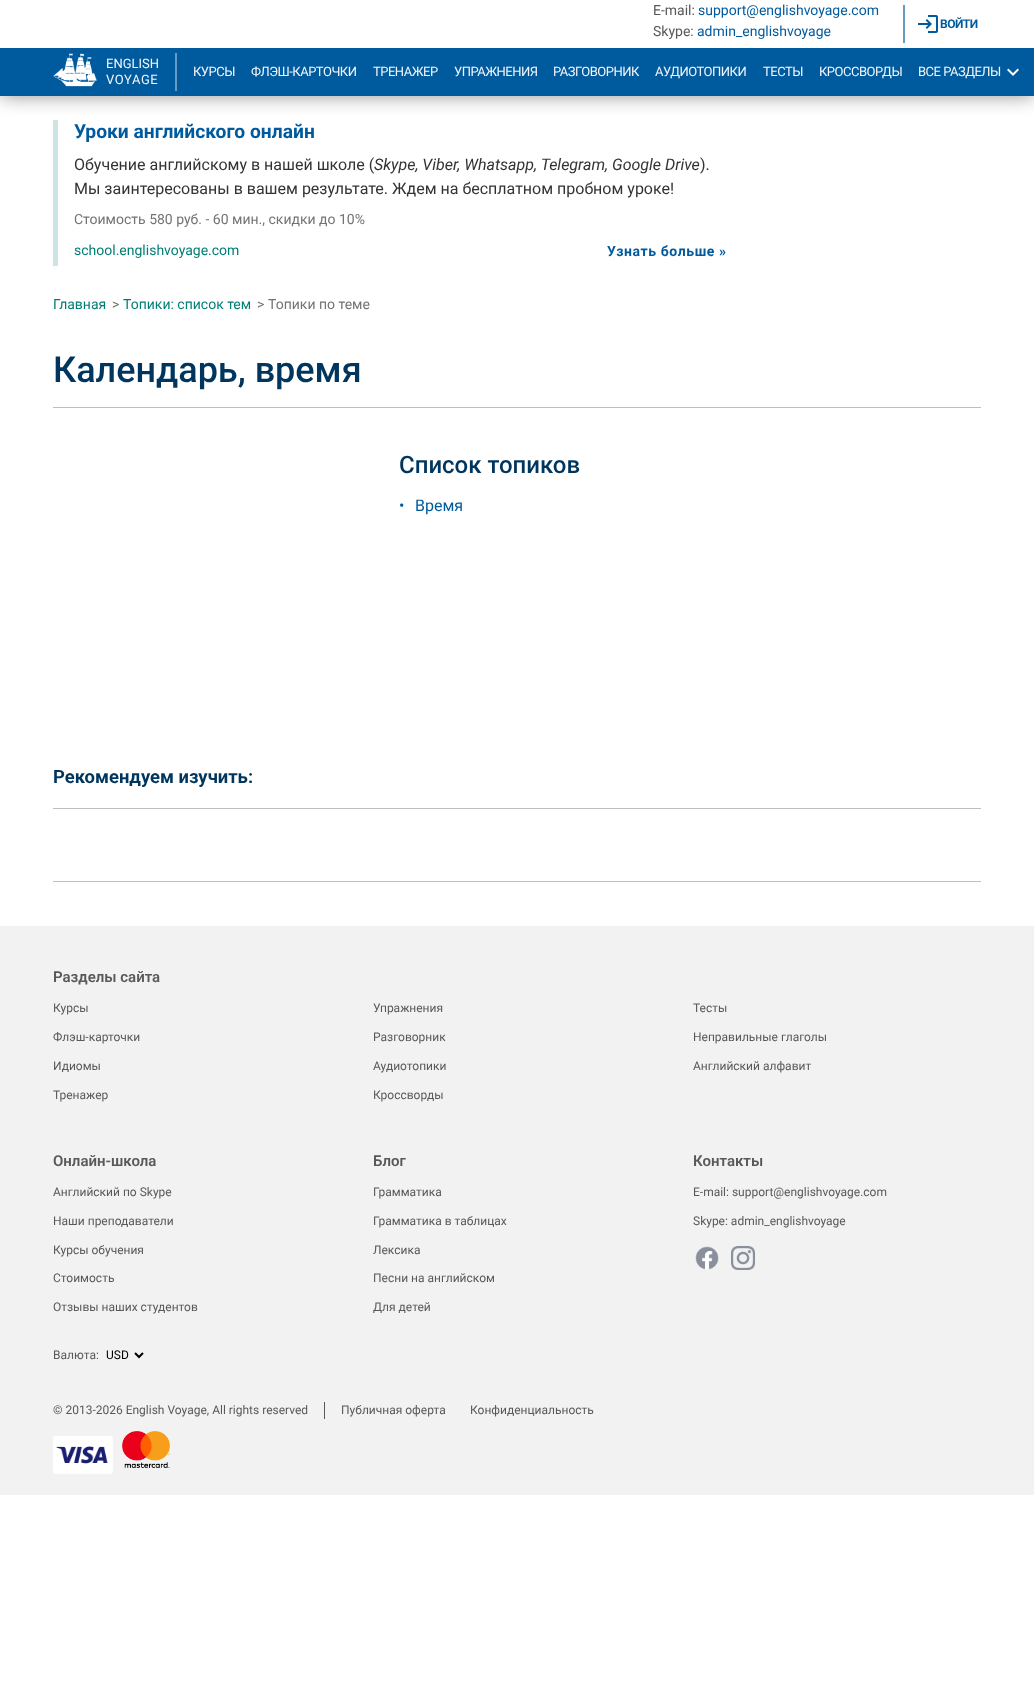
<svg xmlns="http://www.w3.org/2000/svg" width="1034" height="1690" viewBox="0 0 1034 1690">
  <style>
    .t1 { font: 14px Roboto; fill: #595959; }
    .t2 { font: 14px Roboto; fill: #005a9e; }
    .t3 { font: bold 12px Roboto; letter-spacing: -0.5px; fill: #005a9e; }
    .t4 { font: 13px Roboto; fill: #f2f6fa; }
    .t5 { font: 13px Roboto; letter-spacing: 0.6px; fill: #f2f6fa; }
    .t6 { font: 13px Roboto; letter-spacing: -0.5px; fill: #f2f6fa; }
    .t7 { font: bold 19.25px Roboto; fill: #005a9e; }
    .t8 { font: 16px Roboto; fill: #333; }
    .t9 { font: italic 16px Roboto; fill: #333; }
    .t10 { font: 14px Roboto; fill: #737373; }
    .t11 { font: 14px Roboto; fill: #007e75; }
    .t12 { font: bold 14px Roboto; letter-spacing: 0.6px; fill: #005a9e; }
    .t13 { font: 500 36px Roboto; fill: #00365e; }
    .t14 { font: 500 24px Roboto; fill: #00365e; }
    .t15 { font: 16px Roboto; fill: #005a9e; }
    .t16 { font: bold 18.4px Roboto; fill: #00365e; }
    .t17 { font: 600 15px Roboto; fill: #595959; }
    .t18 { font: 12px Roboto; fill: #595959; }
    .t19 { font: 12px Roboto; fill: #000; }
  </style>
  <defs>
    <clipPath id="clip1"><rect x="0" y="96" width="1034" height="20"/></clipPath>
  </defs>
  <rect width="100%" height="100%" fill="#fff"/>
  <rect x="53" y="120" width="5" height="146" fill="#cce5e3"/>
  <g clip-path="url(#clip1)">
    <rect x="0" y="-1" width="1034" height="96" fill="#888" filter="blur(10px)"/>
  </g>
  <text x="653" y="15" class="t1">E-mail:</text>
  <text x="698" y="15" class="t2">support@englishvoyage.com</text>
  <text x="653" y="36" class="t1">Skype:</text>
  <text x="697" y="36" class="t2">admin_englishvoyage</text>
  <rect x="903" y="5" width="2" height="38" fill="#669cc4"/>
  <image x="918" y="15" width="20" height="18" href="images/1.png"/>
  <text x="940" y="28" class="t3">ВОЙТИ</text>
  <rect x="0" y="48" width="1034" height="48" fill="#005a9e"/>
  <image x="53" y="53" width="44" height="34" href="images/2.png"/>
  <text x="106" y="68" class="t4">ENGLISH</text>
  <text x="106" y="84" class="t5">VOYAGE</text>
  <rect x="175" y="53" width="2" height="38" fill="#669cc4"/>
  <text x="193" y="76" class="t6">КУРСЫ</text>
  <text x="251" y="76" class="t6">ФЛЭШ-КАРТОЧКИ</text>
  <text x="373" y="76" class="t6">ТРЕНАЖЕР</text>
  <text x="454" y="76" class="t6">УПРАЖНЕНИЯ</text>
  <text x="553" y="76" class="t6">РАЗГОВОРНИК</text>
  <text x="655" y="76" class="t6">АУДИОТОПИКИ</text>
  <text x="763" y="76" class="t6">ТЕСТЫ</text>
  <text x="819" y="76" class="t6">КРОССВОРДЫ</text>
  <text x="918" y="76" class="t6">ВСЕ РАЗДЕЛЫ</text>
  <image x="1007" y="68" width="12" height="8" href="images/3.png"/>
  <text x="74" y="138" class="t7">Уроки английского онлайн</text>
  <text x="74" y="170" class="t8">Обучение английскому в нашей школе (</text>
  <text x="374" y="170" class="t9">Skype, Viber, Whatsapp, Telegram, Google Drive</text>
  <text x="700" y="170" class="t8">).</text>
  <text x="74" y="194" class="t8">Мы заинтересованы в вашем результате. Ждем на бесплатном пробном уроке!</text>
  <text x="74" y="224" class="t10">Стоимость 580 руб. - 60 мин., скидки до 10%</text>
  <text x="74" y="255" class="t11">school.englishvoyage.com</text>
  <text x="607" y="256" class="t12">Узнать больше »</text>
  <text x="53" y="309" class="t11">Главная</text>
  <text x="112" y="309" class="t10">&gt;</text>
  <text x="123" y="309" class="t11">Топики: список тем</text>
  <text x="257" y="309" class="t10">&gt;</text>
  <text x="268" y="309" class="t10">Топики по теме</text>
  <text x="53" y="382" class="t13">Календарь, время</text>
  <rect x="53" y="407" width="928" height="1" fill="#bfbfbf"/>
  <text x="399" y="473" class="t14">Список топиков</text>
  <text x="399" y="511" class="t15">•</text>
  <text x="415" y="511" class="t15">Время</text>
  <text x="53" y="783" class="t16">Рекомендуем изучить:</text>
  <rect x="53" y="808" width="928" height="1" fill="#bfbfbf"/>
  <rect x="53" y="881" width="928" height="1" fill="#bfbfbf"/>
  <rect x="0" y="926" width="1034" height="569" fill="#f2f2f2"/>
  <text x="53" y="982" class="t17">Разделы сайта</text>
  <text x="53" y="1012" class="t18">Курсы</text>
  <text x="53" y="1041" class="t18">Флэш-карточки</text>
  <text x="53" y="1070" class="t18">Идиомы</text>
  <text x="53" y="1099" class="t18">Тренажер</text>
  <text x="373" y="1012" class="t18">Упражнения</text>
  <text x="373" y="1041" class="t18">Разговорник</text>
  <text x="373" y="1070" class="t18">Аудиотопики</text>
  <text x="373" y="1099" class="t18">Кроссворды</text>
  <text x="693" y="1012" class="t18">Тесты</text>
  <text x="693" y="1041" class="t18">Неправильные глаголы</text>
  <text x="693" y="1070" class="t18">Английский алфавит</text>
  <text x="53" y="1166" class="t17">Онлайн-школа</text>
  <text x="53" y="1196" class="t18">Английский по Skype</text>
  <text x="53" y="1225" class="t18">Наши преподаватели</text>
  <text x="53" y="1254" class="t18">Курсы обучения</text>
  <text x="53" y="1282" class="t18">Стоимость</text>
  <text x="53" y="1311" class="t18">Отзывы наших студентов</text>
  <text x="373" y="1166" class="t17">Блог</text>
  <text x="373" y="1196" class="t18">Грамматика</text>
  <text x="373" y="1225" class="t18">Грамматика в таблицах</text>
  <text x="373" y="1254" class="t18">Лексика</text>
  <text x="373" y="1282" class="t18">Песни на английском</text>
  <text x="373" y="1311" class="t18">Для детей</text>
  <text x="693" y="1166" class="t17">Контакты</text>
  <text x="693" y="1196" class="t18">E-mail: support@englishvoyage.com</text>
  <text x="693" y="1225" class="t18">Skype: admin_englishvoyage</text>
  <image x="695" y="1246" width="24" height="24" href="images/4.png"/>
  <image x="731" y="1246" width="24" height="24" href="images/5.png"/>
  <text x="53" y="1359" class="t18">Валюта:</text>
  <path d="M135 1353L139 1357L143 1353" fill="none" stroke="#000" stroke-width="2"/>
  <text x="106" y="1359" class="t19">USD</text>
  <rect x="324" y="1402" width="1" height="17" fill="#595959"/>
  <text x="53" y="1414" class="t18">© 2013-2026 English Voyage, All rights reserved</text>
  <text x="341" y="1414" class="t18">Публичная оферта</text>
  <text x="470" y="1414" class="t18">Конфиденциальность</text>
  <image x="53" y="1436" width="60" height="38" href="images/6.png"/>
  <image x="122" y="1431" width="48" height="37" href="images/7.png"/>
</svg>
